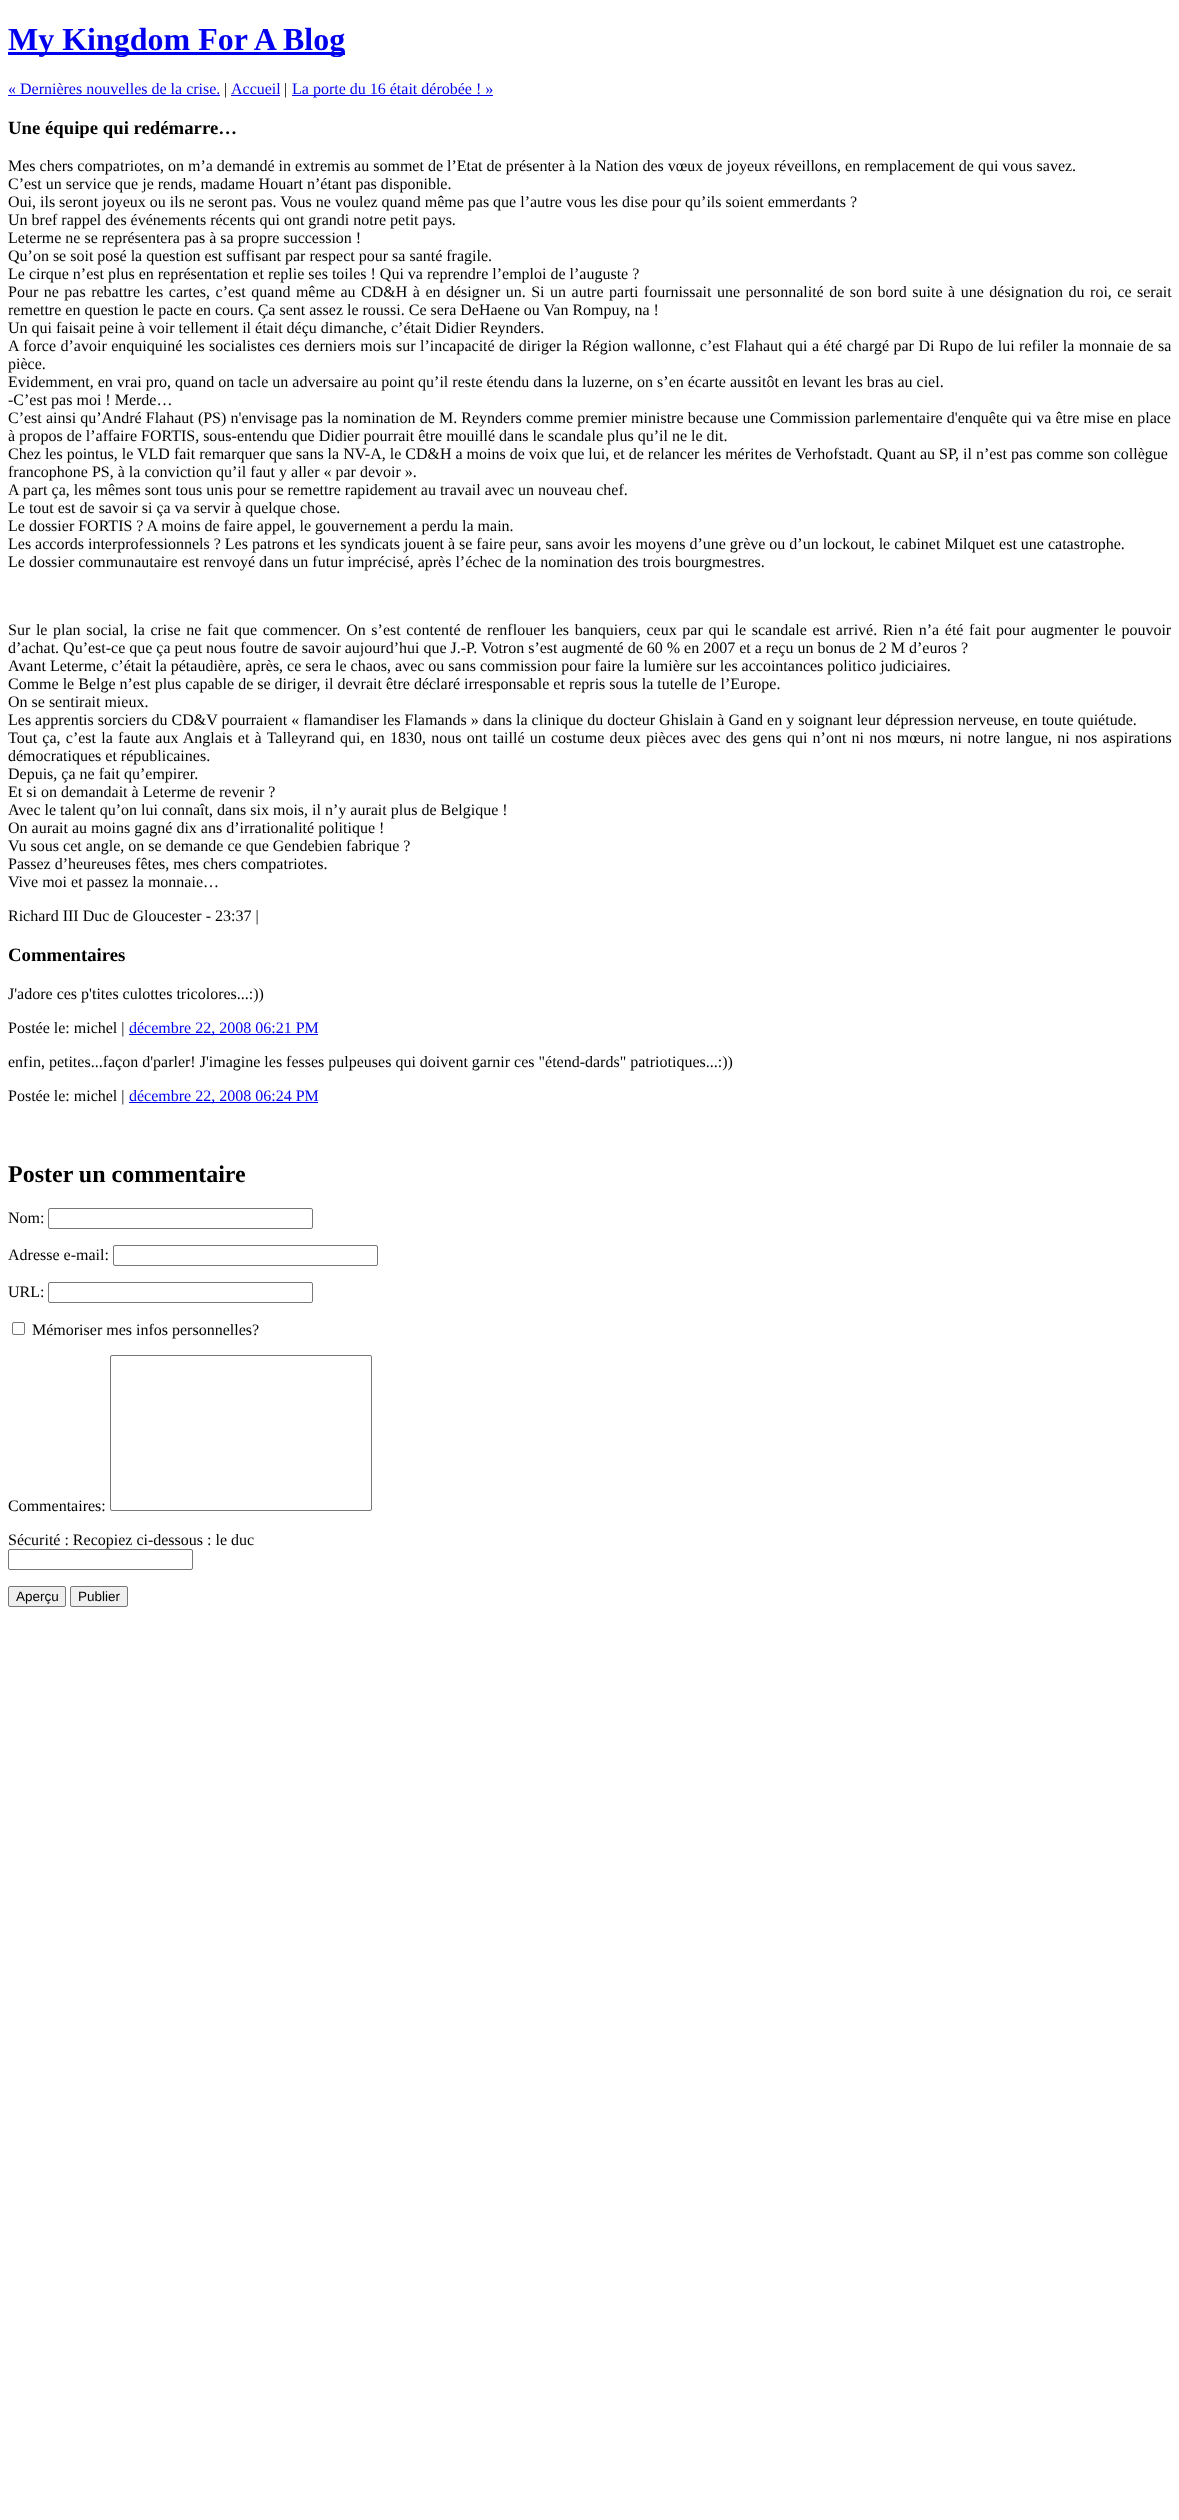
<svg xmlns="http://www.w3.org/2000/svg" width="1179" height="2520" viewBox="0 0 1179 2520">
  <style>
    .t1 { font: bold 32px Liberation Serif; fill: #00e; }
    .t2 { font: 16px Liberation Serif; fill: #00e; }
    .t3 { font: 16px Liberation Serif; fill: #000; }
    .t4 { font: bold 18.75px Liberation Serif; fill: #000; }
    .t5 { font: bold 24px Liberation Serif; fill: #000; }
    .t6 { font: 13.5px Liberation Sans; fill: #000; }
  </style>
  <rect width="100%" height="100%" fill="#fff"/>
  <rect x="8" y="52" width="337" height="3" fill="#00e"/>
  <text x="8" y="50" class="t1">My Kingdom For A Blog</text>
  <text x="8" y="94" class="t2">« Dernières nouvelles de la crise.</text>
  <rect x="8" y="95" width="212" height="1" fill="#00e"/>
  <text x="224" y="94" class="t3">|</text>
  <text x="231" y="94" class="t2">Accueil</text>
  <rect x="231" y="95" width="49" height="1" fill="#00e"/>
  <text x="284" y="94" class="t3">|</text>
  <rect x="292" y="95" width="201" height="1" fill="#00e"/>
  <text x="292" y="94" class="t2">La porte du 16 était dérobée ! »</text>
  <text x="8" y="134" class="t4">Une équipe qui redémarre…</text>
  <text x="8" y="171" class="t3">Mes chers compatriotes, on m’a demandé in extremis au sommet de l’Etat de présenter à la Nation des vœux de joyeux réveillons, en remplacement de qui vous savez.</text>
  <text x="8" y="189" class="t3">C’est un service que je rends, madame Houart n’étant pas disponible.</text>
  <text x="8" y="207" class="t3">Oui, ils seront joyeux ou ils ne seront pas. Vous ne voulez quand même pas que l’autre vous les dise pour qu’ils soient emmerdants ?</text>
  <text x="8" y="225" class="t3">Un bref rappel des événements récents qui ont grandi notre petit pays.</text>
  <text x="8" y="243" class="t3">Leterme ne se représentera pas à sa propre succession !</text>
  <text x="8" y="261" class="t3">Qu’on se soit posé la question est suffisant par respect pour sa santé fragile.</text>
  <text x="8" y="279" class="t3">Le cirque n’est plus en représentation et replie ses toiles ! Qui va reprendre l’emploi de l’auguste ?</text>
  <text x="8" y="297" word-spacing="1.5" class="t3">Pour ne pas rebattre les cartes, c’est quand même au CD&amp;H à en désigner un. Si un autre parti fournissait une personnalité de son bord suite à une désignation du roi, ce serait</text>
  <text x="8" y="315" class="t3">remettre en question le pacte en cours. Ça sent assez le roussi. Ce sera DeHaene ou Van Rompuy, na !</text>
  <text x="8" y="333" class="t3">Un qui faisait peine à voir tellement il était déçu dimanche, c’était Didier Reynders.</text>
  <text x="8" y="351" word-spacing="0.5" class="t3">A force d’avoir enquiquiné les socialistes ces derniers mois sur l’incapacité de diriger la Région wallonne, c’est Flahaut qui a été chargé par Di Rupo de lui refiler la monnaie de sa</text>
  <text x="8" y="369" class="t3">pièce.</text>
  <text x="8" y="387" class="t3">Evidemment, en vrai pro, quand on tacle un adversaire au point qu’il reste étendu dans la luzerne, on s’en écarte aussitôt en levant les bras au ciel.</text>
  <text x="8" y="405" class="t3">-C’est pas moi ! Merde…</text>
  <text x="8" y="423" word-spacing="0.15" class="t3">C’est ainsi qu’André Flahaut (PS) n'envisage pas la nomination de M. Reynders comme premier ministre because une Commission parlementaire d'enquête qui va être mise en place</text>
  <text x="8" y="441" class="t3">à propos de l’affaire FORTIS, sous-entendu que Didier pourrait être mouillé dans le scandale plus qu’il ne le dit.</text>
  <text x="8" y="459" class="t3">Chez les pointus, le VLD fait remarquer que sans la NV-A, le CD&amp;H a moins de voix que lui, et de relancer les mérites de Verhofstadt. Quant au SP, il n’est pas comme son collègue</text>
  <text x="8" y="477" class="t3">francophone PS, à la conviction qu’il faut y aller « par devoir ».</text>
  <text x="8" y="495" class="t3">A part ça, les mêmes sont tous unis pour se remettre rapidement au travail avec un nouveau chef.</text>
  <text x="8" y="513" class="t3">Le tout est de savoir si ça va servir à quelque chose.</text>
  <text x="8" y="531" class="t3">Le dossier FORTIS ? A moins de faire appel, le gouvernement a perdu la main.</text>
  <text x="8" y="549" class="t3">Les accords interprofessionnels ? Les patrons et les syndicats jouent à se faire peur, sans avoir les moyens d’une grève ou d’un lockout, le cabinet Milquet est une catastrophe.</text>
  <text x="8" y="567" class="t3">Le dossier communautaire est renvoyé dans un futur imprécisé, après l’échec de la nomination des trois bourgmestres.</text>
  <text x="8" y="635" word-spacing="1.65" class="t3">Sur le plan social, la crise ne fait que commencer. On s’est contenté de renflouer les banquiers, ceux par qui le scandale est arrivé. Rien n’a été fait pour augmenter le pouvoir</text>
  <text x="8" y="653" class="t3">d’achat. Qu’est-ce que ça peut nous foutre de savoir aujourd’hui que J.-P. Votron s’est augmenté de 60 % en 2007 et a reçu un bonus de 2 M d’euros ?</text>
  <text x="8" y="671" class="t3">Avant Leterme, c’était la pétaudière, après, ce sera le chaos, avec ou sans commission pour faire la lumière sur les accointances politico judiciaires.</text>
  <text x="8" y="689" class="t3">Comme le Belge n’est plus capable de se diriger, il devrait être déclaré irresponsable et repris sous la tutelle de l’Europe.</text>
  <text x="8" y="707" class="t3">On se sentirait mieux.</text>
  <text x="8" y="725" class="t3">Les apprentis sorciers du CD&amp;V pourraient « flamandiser les Flamands » dans la clinique du docteur Ghislain à Gand en y soignant leur dépression nerveuse, en toute quiétude.</text>
  <text x="8" y="743" word-spacing="1.25" class="t3">Tout ça, c’est la faute aux Anglais et à Talleyrand qui, en 1830, nous ont taillé un costume deux pièces avec des gens qui n’ont ni nos mœurs, ni notre langue, ni nos aspirations</text>
  <text x="8" y="761" class="t3">démocratiques et républicaines.</text>
  <text x="8" y="779" class="t3">Depuis, ça ne fait qu’empirer.</text>
  <text x="8" y="797" class="t3">Et si on demandait à Leterme de revenir ?</text>
  <text x="8" y="815" class="t3">Avec le talent qu’on lui connaît, dans six mois, il n’y aurait plus de Belgique !</text>
  <text x="8" y="833" class="t3">On aurait au moins gagné dix ans d’irrationalité politique !</text>
  <text x="8" y="851" class="t3">Vu sous cet angle, on se demande ce que Gendebien fabrique ?</text>
  <text x="8" y="869" class="t3">Passez d’heureuses fêtes, mes chers compatriotes.</text>
  <text x="8" y="887" class="t3">Vive moi et passez la monnaie…</text>
  <text x="8" y="921" class="t3">Richard III Duc de Gloucester - 23:37 |</text>
  <text x="8" y="961" class="t4">Commentaires</text>
  <text x="8" y="999" class="t3">J'adore ces p'tites culottes tricolores...:))</text>
  <text x="8" y="1033" class="t3">Postée le: michel |</text>
  <rect x="129" y="1034" width="189" height="1" fill="#00e"/>
  <text x="129" y="1033" class="t2">décembre 22, 2008 06:21 PM</text>
  <text x="8" y="1067" class="t3">enfin, petites...façon d'parler! J'imagine les fesses pulpeuses qui doivent garnir ces "étend-dards" patriotiques...:))</text>
  <text x="8" y="1101" class="t3">Postée le: michel |</text>
  <rect x="129" y="1102" width="189" height="1" fill="#00e"/>
  <text x="129" y="1101" class="t2">décembre 22, 2008 06:24 PM</text>
  <text x="8" y="1182" class="t5">Poster un commentaire</text>
  <text x="8" y="1223" class="t3">Nom:</text>
  <rect x="48.5" y="1208.5" width="264" height="20" rx="1.5" fill="none" stroke="#767676"/>
  <text x="8" y="1260" class="t3">Adresse e-mail:</text>
  <rect x="113.5" y="1245.5" width="264" height="20" rx="1.5" fill="none" stroke="#767676"/>
  <text x="8" y="1297" class="t3">URL:</text>
  <rect x="48.5" y="1282.5" width="264" height="20" rx="1.5" fill="none" stroke="#767676"/>
  <rect x="12.5" y="1322.5" width="12" height="12" rx="1.5" fill="none" stroke="#767676"/>
  <text x="32" y="1335" class="t3">Mémoriser mes infos personnelles?</text>
  <text x="8" y="1511" class="t3">Commentaires:</text>
  <rect x="110.5" y="1355.5" width="261" height="155" rx="1.5" fill="none" stroke="#767676"/>
  <text x="8" y="1545" class="t3">Sécurité : Recopiez ci-dessous : le duc</text>
  <rect x="8.5" y="1549.5" width="184" height="20" rx="1.5" fill="none" stroke="#767676"/>
  <rect x="8.5" y="1586.5" width="57" height="20" rx="1.5" fill="#efefef" stroke="#767676"/>
  <text x="16" y="1601" class="t6">Aperçu</text>
  <rect x="70.5" y="1586.5" width="57" height="20" rx="1.5" fill="#efefef" stroke="#767676"/>
  <text x="78" y="1601" class="t6">Publier</text>
</svg>
